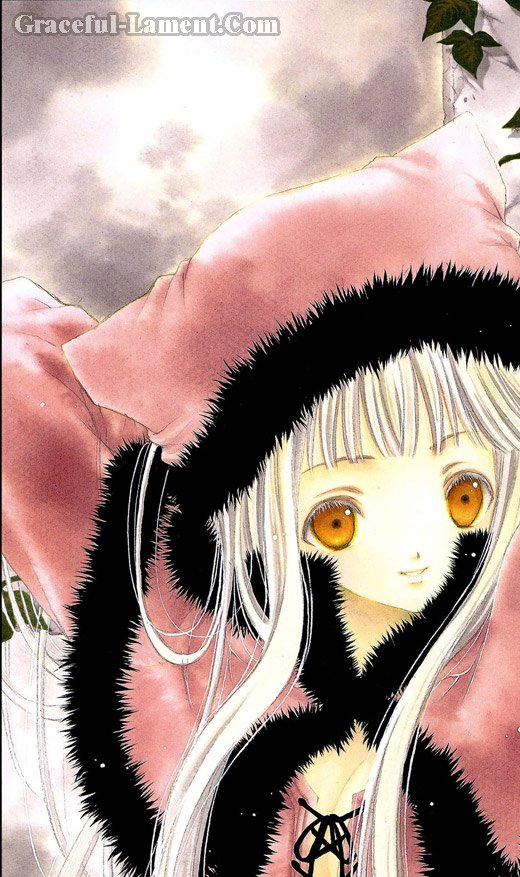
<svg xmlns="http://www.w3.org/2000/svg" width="520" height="877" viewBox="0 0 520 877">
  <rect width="100%" height="100%" fill="#fff"/>
  <image x="0" y="0" width="520" height="877" href="images/1.png"/>
</svg>
